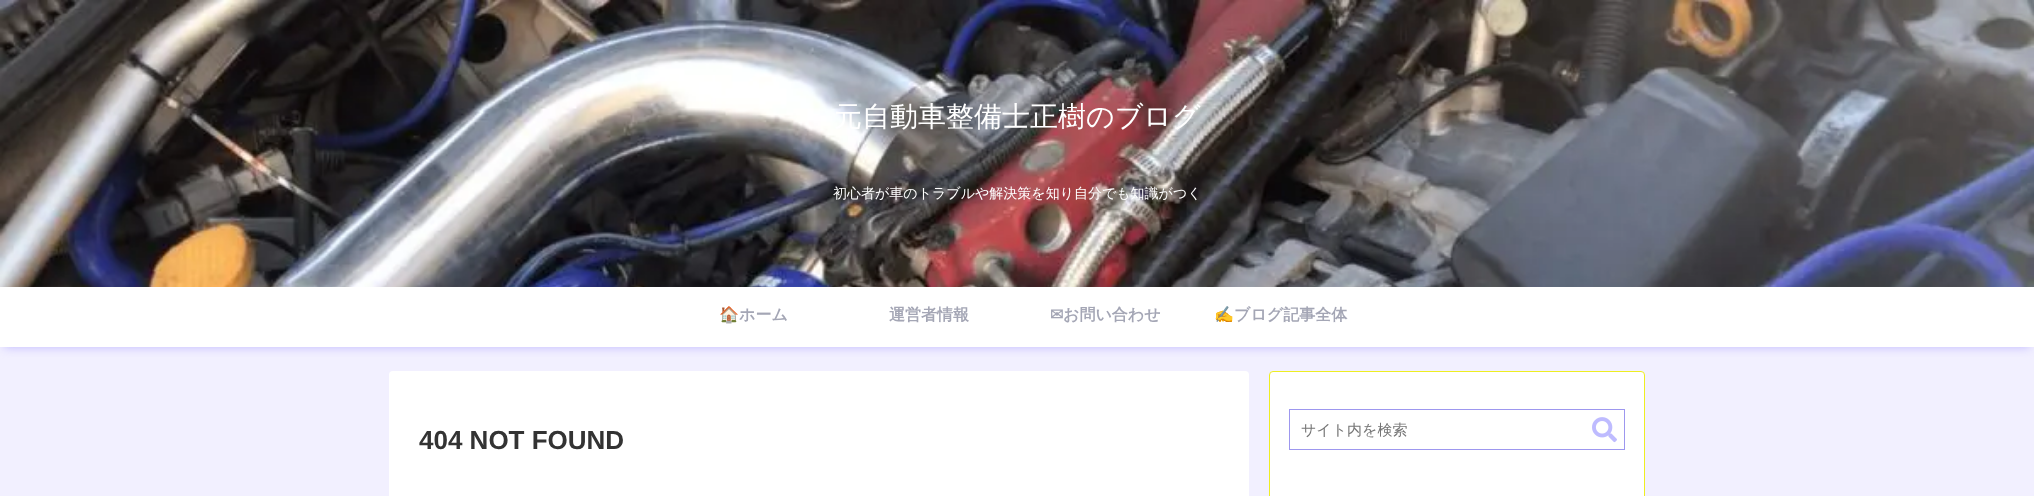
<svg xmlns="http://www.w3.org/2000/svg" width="2034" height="496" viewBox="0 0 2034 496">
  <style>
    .t1 { font: 500 28px WenQuanYi Zen Hei; fill: #fff; }
    .t2 { font: 500 14px WenQuanYi Zen Hei; fill: #fff; }
    .t3 { font: bold 16px Noto Color Emoji; fill: #a4a6b5; }
    .t4 { font: bold 16px WenQuanYi Zen Hei; fill: #a4a6b5; }
    .t5 { font: bold 16px DejaVu Sans; fill: #a4a6b5; }
    .t6 { font: bold 26px Liberation Sans; fill: #333; }
    .t7 { font: 500 15px WenQuanYi Zen Hei; fill: #757575; }
  </style>
  <defs>
    <clipPath id="clip1"><path d="M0 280H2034V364H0ZM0 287H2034V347H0Z" clip-rule="evenodd"/></clipPath>
  </defs>
  <rect width="100%" height="100%" fill="#f2f0ff"/>
  <rect x="0" y="287" width="2034" height="60" fill="#fff"/>
  <image x="0" y="0" width="2034" height="287" href="images/1.png"/>
  <text x="834" y="126" class="t1">元自動車整備士正樹のブログ</text>
  <text x="833" y="198" class="t2">初心者が車のトラブルや解決策を知り自分でも知識がつく</text>
  <g clip-path="url(#clip1)">
    <rect x="4" y="296" width="2026" height="52" fill="#c7c0ff" filter="blur(5px)"/>
  </g>
  <text x="719" y="320" class="t3">🏠</text>
  <text x="739" y="320" class="t4">ホーム</text>
  <text x="889" y="320" class="t4">運営者情報</text>
  <text x="1050" y="320" class="t5">✉</text>
  <text x="1063" y="320" class="t4">お問い合わせ</text>
  <text x="1214" y="320" class="t3">✍</text>
  <text x="1234" y="320" class="t4">ブログ記事全体</text>
  <rect x="389" y="371" width="860" height="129" rx="4" fill="#fff"/>
  <text x="419" y="449" class="t6">404 NOT FOUND</text>
  <rect x="1269.5" y="371.5" width="375" height="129" rx="3.5" fill="#fff" stroke="#ee2"/>
  <rect x="1289.5" y="409.5" width="335" height="40" fill="none" stroke="#9d97ef"/>
  <text x="1301" y="435" class="t7">サイト内を検索</text>
  <image x="1592" y="417" width="25" height="26" href="images/2.png"/>
</svg>
